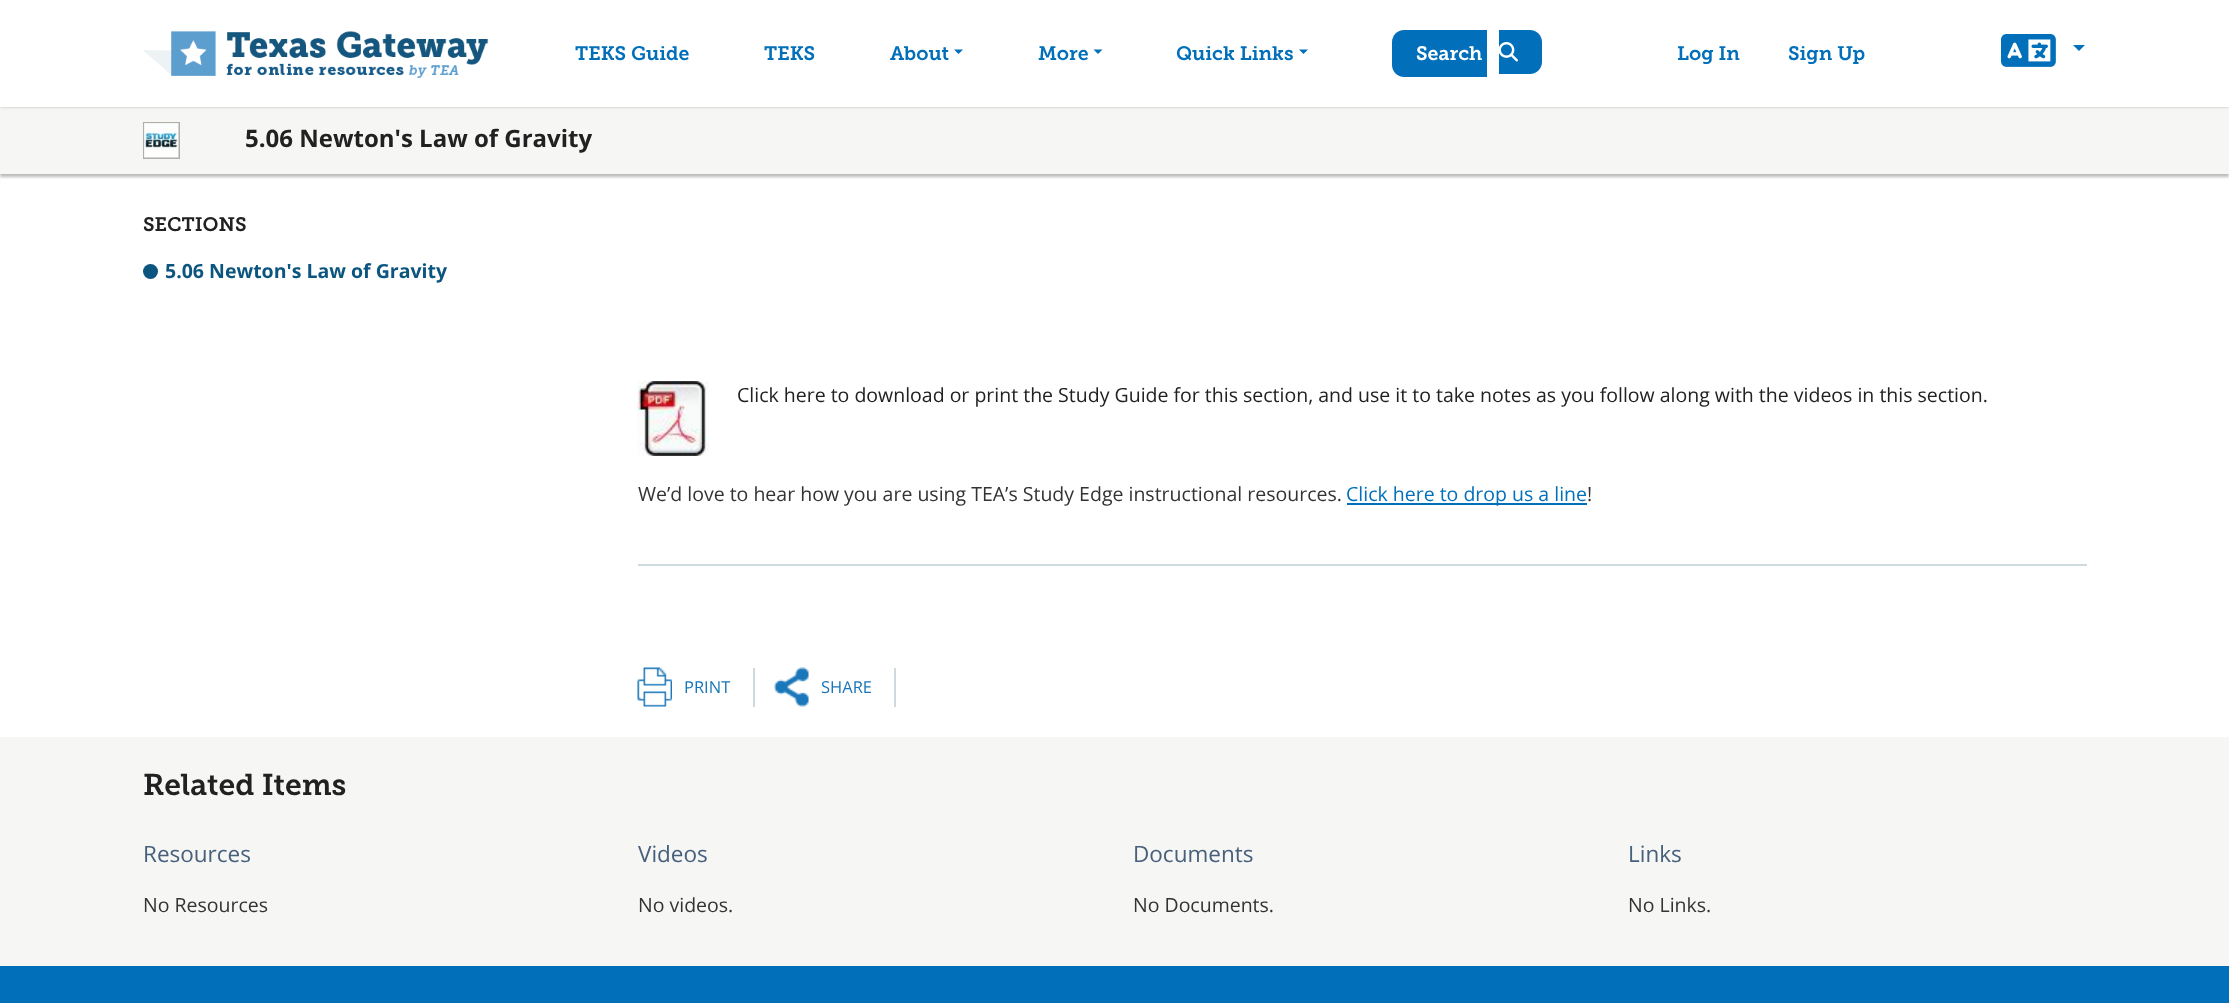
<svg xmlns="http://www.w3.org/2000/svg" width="2229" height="1003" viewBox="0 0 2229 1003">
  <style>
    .t1 { font: 600 19.5px 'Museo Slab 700'; fill: #016fb9; }
    .t2 { font: 600 19.5px 'Museo Slab 700'; fill: #fff; }
    .t3 { font: bold 24px Open Sans; fill: #212121; }
    .t4 { font: 600 19.5px 'Museo Slab 700'; fill: #212121; }
    .t5 { font: bold 19.5px Open Sans; fill: #0c557f; }
    .t6 { font: 19.5px Open Sans; fill: #212121; }
    .t7 { font: 19.5px Open Sans; fill: #333; }
    .t8 { font: 19.5px Open Sans; fill: #016fb9; }
    .t9 { font: 16.5px Open Sans; fill: #1776b8; }
    .t10 { font: 600 30px 'Museo Slab 700'; fill: #212121; }
    .t11 { font: 22.5px Open Sans; fill: #47607b; }
  </style>
  <rect width="100%" height="100%" fill="#fff"/>
  <rect x="0" y="110" width="2229" height="67" fill="#bbb" filter="blur(1.5px)"/>
  <rect x="0" y="107" width="2229" height="67" fill="#f6f6f5"/>
  <rect x="0" y="0" width="2229" height="107" fill="#bbb" filter="blur(1.5px)"/>
  <rect x="0" y="0" width="2229" height="107" fill="#fff"/>
  <image x="143" y="30" width="346" height="48" href="images/1.png"/>
  <text x="575" y="60" class="t1">TEKS Guide</text>
  <text x="764" y="60" class="t1">TEKS</text>
  <text x="890" y="60" class="t1">About</text>
  <path d="M954 49.5H963L958.5 54Z" fill="#016fb9"/>
  <text x="1038" y="60" class="t1">More</text>
  <path d="M1093.5 49.5H1102.5L1098 54Z" fill="#016fb9"/>
  <text x="1176" y="60" class="t1">Quick Links</text>
  <path d="M1299 49.5H1308L1303.5 54Z" fill="#016fb9"/>
  <path d="M1404 30H1487V77H1404C1397.5 77 1392 71.5 1392 65V42C1392 35.5 1397.5 30 1404 30Z" fill="#016fb9"/>
  <path d="M1499 30H1530C1536.5 30 1542 35.5 1542 42V62C1542 68.5 1536.5 74 1530 74H1499Z" fill="#016fb9"/>
  <text x="1416" y="60" class="t2">Search</text>
  <image x="1499" y="42" width="19" height="20" href="images/2.png"/>
  <text x="1677" y="60" class="t1">Log In</text>
  <text x="1788" y="60" class="t1">Sign Up</text>
  <image x="2001" y="34" width="55" height="33" href="images/3.png"/>
  <path d="M2073 45H2085L2079 51Z" fill="#016fb9"/>
  <rect x="144" y="123" width="35" height="35" fill="none" stroke="#aeaead" stroke-width="2"/>
  <image x="144" y="123" width="35" height="35" href="images/4.png"/>
  <text x="245" y="147" class="t3">5.06 Newton's Law of Gravity</text>
  <text x="143" y="231" class="t4">SECTIONS</text>
  <circle cx="150.5" cy="271.5" r="7.5" fill="#0c557f"/>
  <text x="165" y="278" class="t5">5.06 Newton's Law of Gravity</text>
  <rect x="638" y="564" width="1449" height="2" fill="#cfdadf"/>
  <image x="637" y="381" width="73" height="75" href="images/5.png"/>
  <text x="737" y="402" class="t6">Click here to download or print the Study Guide for this section, and use it to take notes as you follow along with the videos in this section.</text>
  <text x="638" y="501" class="t7">We’d love to hear how you are using TEA’s Study Edge instructional resources.</text>
  <rect x="1347" y="503" width="240" height="2" fill="#016fb9"/>
  <text x="1346" y="501" class="t8">Click here to drop us a line</text>
  <text x="1587" y="501" class="t7">!</text>
  <rect x="753" y="668" width="2" height="39" fill="#cfdadf"/>
  <image x="637" y="667" width="35" height="40" href="images/6.png"/>
  <text x="684" y="693" class="t9">PRINT</text>
  <rect x="894" y="668" width="2" height="39" fill="#cfdadf"/>
  <image x="774" y="667" width="35" height="40" href="images/7.png"/>
  <text x="821" y="693" class="t9">SHARE</text>
  <rect x="0" y="737" width="2229" height="229" fill="#f6f6f5"/>
  <text x="143" y="795" class="t10">Related Items</text>
  <text x="143" y="862" class="t11">Resources</text>
  <text x="143" y="912" class="t7">No Resources</text>
  <text x="638" y="862" class="t11">Videos</text>
  <text x="638" y="912" class="t7">No videos.</text>
  <text x="1133" y="862" class="t11">Documents</text>
  <text x="1133" y="912" class="t7">No Documents.</text>
  <text x="1628" y="862" class="t11">Links</text>
  <text x="1628" y="912" class="t7">No Links.</text>
  <rect x="0" y="966" width="2229" height="37" fill="#016fb9"/>
</svg>
